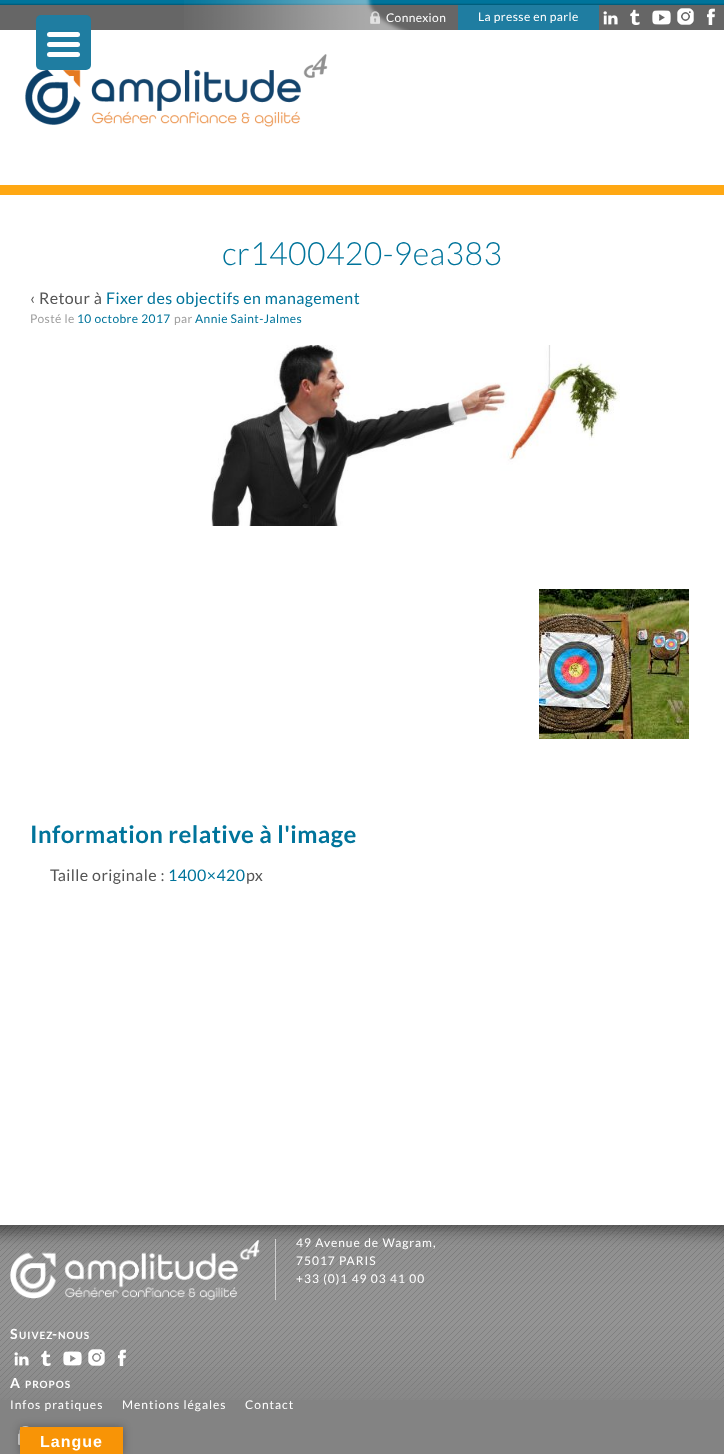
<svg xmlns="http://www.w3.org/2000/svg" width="724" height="1454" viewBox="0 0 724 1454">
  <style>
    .t1 { font: 12px Lato; letter-spacing: 0.4px; fill: #fff; }
    .t2 { font: 300 32px Lato; letter-spacing: 0.4px; fill: #00749b; }
    .t3 { font: 16px Lato; letter-spacing: 0.4px; fill: #555; }
    .t4 { font: 16px Lato; letter-spacing: 0.4px; fill: #00749b; }
    .t5 { font: 12px Lato; letter-spacing: 0.4px; fill: #9f9f9f; }
    .t6 { font: 12px Lato; letter-spacing: 0.4px; fill: #00749b; }
    .t7 { font: bold 24px Lato; letter-spacing: 0.4px; fill: #00749b; }
    .t8 { font: 12px Lato; letter-spacing: 1px; fill: #fff; }
    .t9 { font: bold 14px Lato; letter-spacing: 1px; fill: #fff; }
    .t10 { font: bold 10px Lato; letter-spacing: 1px; fill: #fff; }
    .t11 { font: bold 16px Liberation Sans; letter-spacing: 1px; fill: #fff; }
  </style>
  <rect width="100%" height="100%" fill="#fff"/>
  <rect x="0" y="185" width="724" height="10" fill="#ffa813"/>
  <rect x="0" y="5" width="724" height="25" fill="#666"/>
  <image x="0" y="0" width="724" height="5" href="images/1.png"/>
  <image x="184" y="0" width="225" height="30" href="images/2.png"/>
  <image x="370" y="11" width="10" height="13" href="images/3.png"/>
  <text x="386" y="22" class="t1">Connexion</text>
  <rect x="458" y="5" width="141" height="25" fill="#1f7da1"/>
  <text x="478" y="21" class="t1">La presse en parle</text>
  <image x="603" y="11" width="15" height="14" href="images/4.png"/>
  <image x="630" y="9" width="10" height="16" href="images/5.png"/>
  <image x="652" y="10" width="19" height="15" href="images/6.png"/>
  <image x="677" y="8" width="17" height="17" href="images/7.png"/>
  <image x="707" y="8" width="8" height="17" href="images/8.png"/>
  <image x="25" y="54" width="303" height="73" href="images/9.png"/>
  <text x="222" y="265" class="t2">cr1400420-9ea383</text>
  <text x="30" y="304" class="t3">‹ Retour à</text>
  <text x="106" y="304" class="t4">Fixer des objectifs en management</text>
  <text x="30" y="323" class="t5">Posté le</text>
  <text x="77" y="323" class="t6">10 octobre 2017</text>
  <text x="174" y="323" class="t5">par</text>
  <text x="195" y="323" class="t6">Annie Saint-Jalmes</text>
  <image x="211" y="345" width="409" height="181" href="images/10.png"/>
  <image x="539" y="589" width="150" height="150" href="images/11.png"/>
  <text x="30" y="843" class="t7">Information relative à l'image</text>
  <text x="50" y="881" class="t3">Taille originale :</text>
  <text x="168" y="881" class="t4">1400×420</text>
  <text x="246" y="881" class="t3">px</text>
  <rect x="0" y="1400" width="724" height="54" fill="#838383"/>
  <image x="0" y="1224" width="724" height="176" href="images/12.png"/>
  <rect x="36" y="15" width="55" height="55" rx="5" fill="#1f7da1"/>
  <rect x="47" y="42" width="33" height="5" rx="2.5" fill="#fff"/>
  <rect x="47" y="32" width="33" height="5" rx="2.5" fill="#fff"/>
  <rect x="47" y="52" width="33" height="5" rx="2.5" fill="#fff"/>
  <rect x="275" y="1239" width="1" height="61" fill="#d0d0d0"/>
  <image x="10" y="1240" width="250" height="60" href="images/13.png"/>
  <text x="296" y="1247" class="t8">49 Avenue de Wagram,</text>
  <text x="296" y="1265" class="t8">75017 PARIS</text>
  <text x="296" y="1283" class="t8">+33 (0)1 49 03 41 00</text>
  <text x="10" y="1339" class="t9">S</text>
  <text x="19" y="1339" class="t10">UIVEZ</text>
  <text x="52" y="1339" class="t9">-</text>
  <text x="58" y="1339" class="t10">NOUS</text>
  <image x="14" y="1352" width="15" height="14" href="images/14.png"/>
  <image x="41" y="1350" width="10" height="16" href="images/15.png"/>
  <image x="63" y="1351" width="19" height="15" href="images/16.png"/>
  <image x="88" y="1349" width="17" height="17" href="images/17.png"/>
  <image x="118" y="1349" width="8" height="17" href="images/18.png"/>
  <text x="10" y="1388" class="t9">A</text>
  <text x="25" y="1388" class="t10">PROPOS</text>
  <text x="10" y="1409" class="t8">Infos pratiques</text>
  <text x="122" y="1409" class="t8">Mentions légales</text>
  <text x="245" y="1409" class="t8">Contact</text>
  <image x="18" y="1426" width="11" height="19" href="images/19.png"/>
  <rect x="20" y="1427" width="103" height="27" fill="#0000004d" filter="blur(4.5px)"/>
  <rect x="20" y="1427" width="103" height="27" fill="#f89406"/>
  <text x="40" y="1447" class="t11">Langue</text>
</svg>
